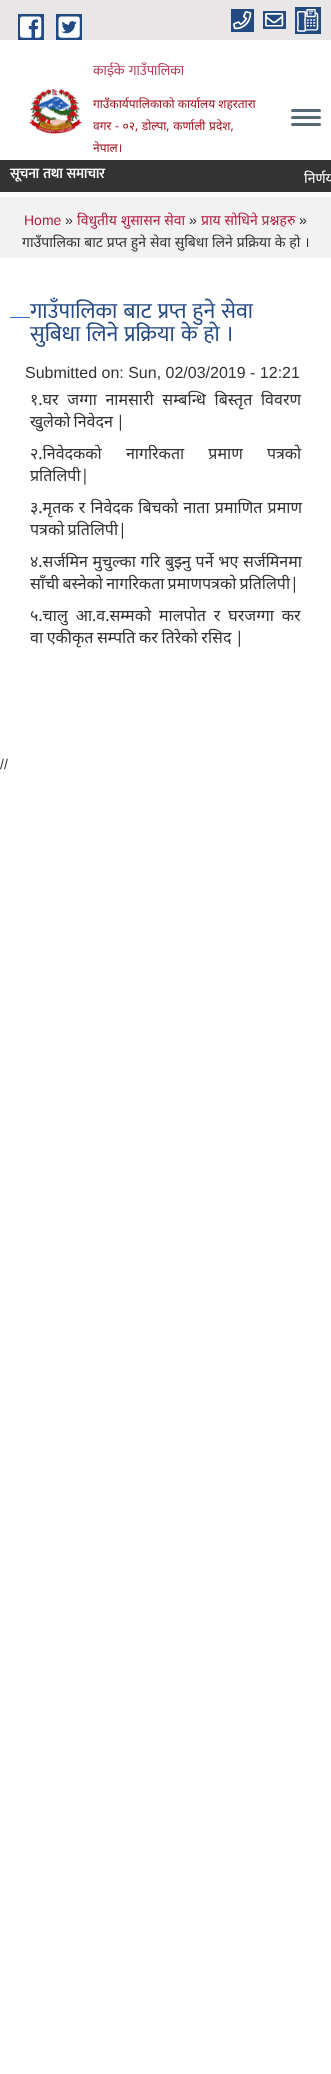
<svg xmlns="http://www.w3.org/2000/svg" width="331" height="2074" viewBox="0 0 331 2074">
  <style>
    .t1 { font: 14px Mukta; fill: #b83955; }
    .t2 { font: 12px Noto Sans; fill: #9e0c18; }
    .t3 { font: bold 14px Mukta; fill: #fff; }
    .t4 { font: 14px Noto Sans; fill: #fff; }
    .t5 { font: 14px Liberation Sans; fill: #b21c42; }
    .t6 { font: 14px Liberation Sans; fill: #333; }
    .t7 { font: 14px Noto Sans; fill: #b21c42; }
    .t8 { font: 14px Noto Sans; fill: #333; }
    .t9 { font: 22px Mukta; fill: #234a83; }
    .t10 { font: 16px Liberation Sans; fill: #333; }
    .t11 { font: 16px Noto Sans; fill: #333; }
  </style>
  <rect width="100%" height="100%" fill="#fff"/>
  <rect x="0" y="0" width="331" height="40" fill="#e8e6e6"/>
  <rect x="18" y="14" width="26" height="26" fill="#234a83"/>
  <rect x="56" y="14" width="26" height="26" fill="#234a83"/>
  <image x="20" y="16" width="22" height="22" href="images/1.png"/>
  <image x="58" y="16" width="22" height="22" href="images/2.png"/>
  <rect x="231" y="9" width="23" height="23" fill="#234a83"/>
  <rect x="295" y="7" width="26" height="27" fill="#234a83"/>
  <image x="233" y="11" width="19" height="19" href="images/3.png"/>
  <rect x="263" y="11" width="23" height="18" fill="#234a83"/>
  <image x="297" y="9" width="22" height="23" href="images/4.png"/>
  <image x="265" y="13" width="19" height="14" href="images/5.png"/>
  <image x="29" y="88" width="54" height="46" href="images/6.png"/>
  <text x="93" y="75" word-spacing="1" class="t1">काईके गाउँपालिका</text>
  <text x="93" y="108" class="t2">गाउँकार्यपालिकाको कार्यालय शहरतारा</text>
  <text x="93" y="130" word-spacing="0.5" class="t2">वगर - ०२, डोल्पा, कर्णाली प्रदेश,</text>
  <text x="93" y="152" class="t2">नेपाल।</text>
  <rect x="291" y="109" width="30" height="3" rx="1.5" fill="#566973"/>
  <rect x="291" y="116" width="30" height="3" rx="1.5" fill="#566973"/>
  <rect x="291" y="123" width="30" height="3" rx="1.5" fill="#566973"/>
  <rect x="0" y="160" width="331" height="32" fill="#333"/>
  <text x="10" y="178" word-spacing="1" class="t3">सूचना तथा समाचार</text>
  <text x="304" y="183" class="t4">निर्णय</text>
  <rect x="0" y="197" width="331" height="61" fill="#f2f2f2"/>
  <text x="24" y="225" class="t5">Home</text>
  <text x="65" y="225" class="t6">»</text>
  <text x="77" y="225" word-spacing="0.25" class="t7">विधुतीय शुसासन सेवा</text>
  <text x="189" y="225" class="t6">»</text>
  <text x="201" y="225" word-spacing="0.25" class="t7">प्राय सोधिने प्रश्नहरु</text>
  <text x="299" y="225" class="t6">»</text>
  <text x="22" y="247" word-spacing="0.25" class="t8">गाउँपालिका बाट प्रप्त हुने सेवा सुबिधा लिने प्रक्रिया के हो ।</text>
  <rect x="10" y="317" width="20" height="1" fill="#376fc2"/>
  <text x="30" y="318" word-spacing="1.25" class="t9">गाउँपालिका बाट प्रप्त हुने सेवा</text>
  <text x="30" y="341" word-spacing="1.25" class="t9">सुबिधा लिने प्रक्रिया के हो ।</text>
  <text x="25" y="378" class="t10">Submitted on: Sun, 02/03/2019 - 12:21</text>
  <text x="30" y="405" word-spacing="4.5" class="t11">१.घर जग्गा नामसारी सम्बन्धि बिस्तृत विवरण</text>
  <text x="30" y="427" word-spacing="-1" class="t11">खुलेको निवेदन |</text>
  <text x="30" y="459" word-spacing="20" class="t11">२.निवेदकको नागरिकता प्रमाण पत्रको</text>
  <text x="30" y="481" class="t11">प्रतिलिपी|</text>
  <text x="30" y="513" word-spacing="1" class="t11">३.मृतक र निवेदक बिचको नाता प्रमाणित प्रमाण</text>
  <text x="30" y="535" word-spacing="-1" class="t11">पत्रको प्रतिलिपी|</text>
  <text x="30" y="567" word-spacing="0.5" class="t11">४.सर्जमिन मुचुल्का गरि बुझ्नु पर्ने भए सर्जमिनमा</text>
  <text x="30" y="589" word-spacing="-1" class="t11">साँची बस्नेको नागरिकता प्रमाणपत्रको प्रतिलिपी|</text>
  <text x="30" y="621" word-spacing="3.75" class="t11">५.चालु आ.व.सम्मको मालपोत र घरजग्गा कर</text>
  <text x="30" y="643" word-spacing="-0.5" class="t11">वा एकीकृत सम्पति कर तिरेको रसिद |</text>
  <text x="0" y="769" class="t6">//</text>
</svg>
